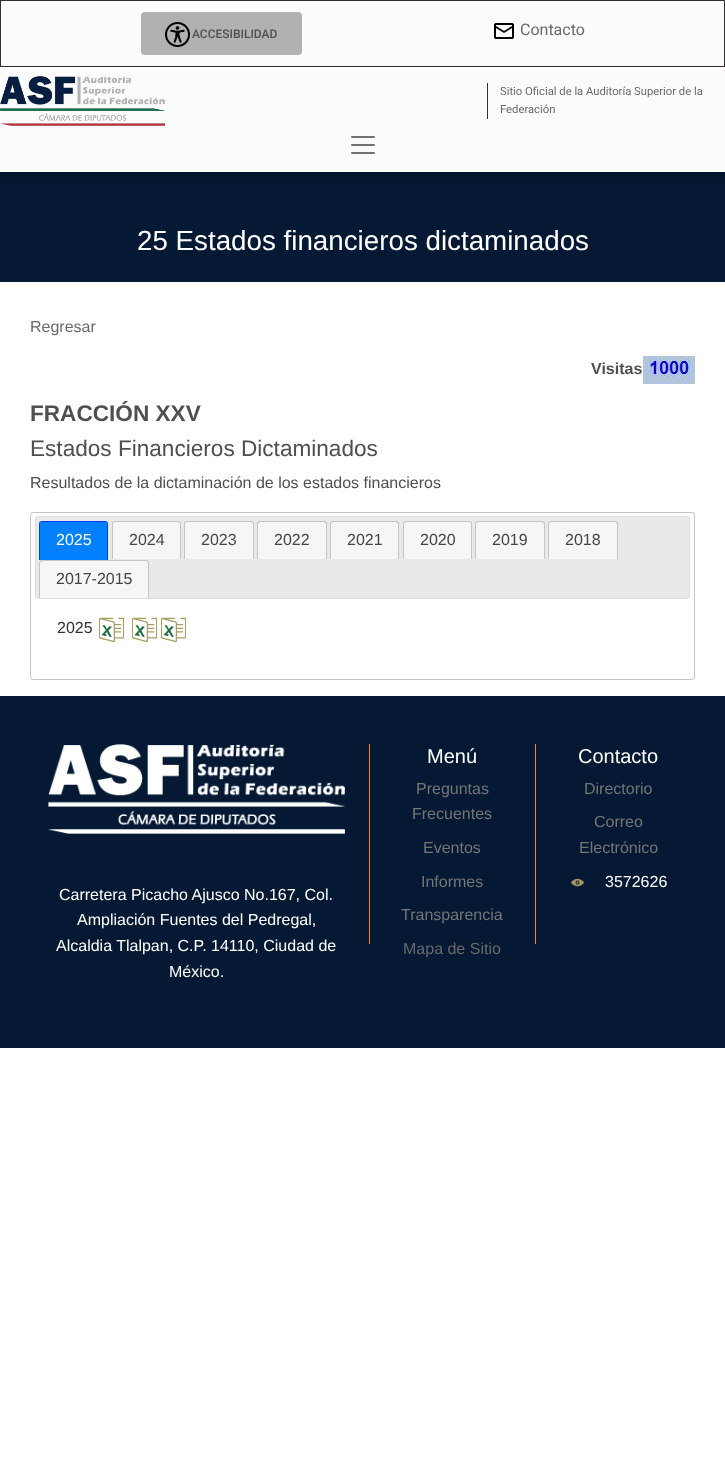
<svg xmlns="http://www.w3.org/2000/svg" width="725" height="1481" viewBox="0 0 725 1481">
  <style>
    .t1 { font: 500 12px Roboto; fill: #4f4f4f; }
    .t2 { font: 16px Roboto; fill: #696969; }
    .t3 { font: 11.25px Roboto; fill: #696969; }
    .t4 { font: 27.75px Liberation Sans; fill: #fff; }
    .t5 { font: 16px Liberation Sans; fill: #696969; }
    .t6 { font: bold 16px Liberation Sans; fill: #4f4f4f; }
    .t7 { font: bold 22.6px Liberation Sans; fill: #4f4f4f; }
    .t8 { font: 22.6px Liberation Sans; fill: #4f4f4f; }
    .t9 { font: 16px Liberation Sans; fill: #4f4f4f; }
    .t10 { font: 16px Liberation Sans; fill: #fff; }
    .t11 { font: 16px Liberation Sans; fill: #454545; }
    .t12 { font: 16px Liberation Sans; fill: #333; }
    .t13 { font: 20px Liberation Sans; fill: #fff; }
    .t14 { font: 16px Liberation Sans; fill: #757575; }
  </style>
  <rect width="100%" height="100%" fill="#fff"/>
  <rect x="0.5" y="0.5" width="724" height="66" fill="#fbfbfb" stroke="#332d2d"/>
  <rect x="141" y="12" width="161" height="43" rx="4" fill="#b1b1b1"/>
  <image x="165" y="22" width="25" height="25" href="images/1.png"/>
  <text x="192" y="38" class="t1">ACCESIBILIDAD</text>
  <image x="494" y="23" width="20" height="16" href="images/2.png"/>
  <text x="520" y="35" class="t2">Contacto</text>
  <rect x="0" y="172" width="725" height="110" fill="#051934"/>
  <rect x="-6" y="69" width="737" height="105" fill="#0000000d" filter="blur(2px)"/>
  <rect x="-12" y="71" width="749" height="105" fill="#00000012" filter="blur(6px)"/>
  <rect x="0" y="67" width="725" height="105" fill="#fbfbfb"/>
  <image x="0" y="76" width="165" height="50" href="images/3.png"/>
  <rect x="487" y="83" width="1" height="36" fill="#332d2d"/>
  <text x="500" y="95" class="t3">Sitio Oficial de la Auditoría Superior de la</text>
  <text x="500" y="113" class="t3">Federación</text>
  <image x="351" y="136" width="24" height="18" href="images/4.png"/>
  <text x="137" y="250" class="t4">25 Estados financieros dictaminados</text>
  <text x="30" y="332" class="t5">Regresar</text>
  <text x="591" y="374" class="t6">Visitas</text>
  <image x="643" y="356" width="52" height="28" href="images/5.png"/>
  <text x="30" y="421" class="t7">FRACCIÓN XXV</text>
  <text x="30" y="456" class="t8">Estados Financieros Dictaminados</text>
  <text x="30" y="488" class="t9">Resultados de la dictaminación de los estados financieros</text>
  <rect x="30.5" y="512.5" width="664" height="167" rx="2.5" fill="none" stroke="#c5c5c5"/>
  <rect x="35.5" y="516.5" width="654" height="82" rx="2.5" fill="#e9e9e9" stroke="#ddd"/>
  <path d="M42 522H105C106 522 107 523 107 524V560H40V524C40 523 41 522 42 522Z" fill="#007fff"/>
  <path d="M42 521H105C107 521 108 522 108 524V560H39V524C39 522 40 521 42 521ZM42 522H105C106 522 107 523 107 524V560H40V524C40 523 41 522 42 522Z" fill="#003eff" fill-rule="evenodd"/>
  <text x="56" y="545" class="t10">2025</text>
  <path d="M115 522H178C179 522 180 523 180 524V559H113V524C113 523 114 522 115 522Z" fill="#f6f6f6"/>
  <path d="M115 521H178C180 521 181 522 181 524V559H112V524C112 522 113 521 115 521ZM115 522H178C179 522 180 523 180 524V559H113V524C113 523 114 522 115 522Z" fill="#c5c5c5" fill-rule="evenodd"/>
  <text x="129" y="545" class="t11">2024</text>
  <path d="M187 522H251C252 522 253 523 253 524V559H185V524C185 523 186 522 187 522Z" fill="#f6f6f6"/>
  <path d="M187 521H251C253 521 254 522 254 524V559H184V524C184 522 185 521 187 521ZM187 522H251C252 522 253 523 253 524V559H185V524C185 523 186 522 187 522Z" fill="#c5c5c5" fill-rule="evenodd"/>
  <text x="201" y="545" class="t11">2023</text>
  <path d="M260 522H324C325 522 326 523 326 524V559H258V524C258 523 259 522 260 522Z" fill="#f6f6f6"/>
  <path d="M260 521H324C326 521 327 522 327 524V559H257V524C257 522 258 521 260 521ZM260 522H324C325 522 326 523 326 524V559H258V524C258 523 259 522 260 522Z" fill="#c5c5c5" fill-rule="evenodd"/>
  <text x="274" y="545" class="t11">2022</text>
  <path d="M333 522H396C397 522 398 523 398 524V559H331V524C331 523 332 522 333 522Z" fill="#f6f6f6"/>
  <path d="M333 521H396C398 521 399 522 399 524V559H330V524C330 522 331 521 333 521ZM333 522H396C397 522 398 523 398 524V559H331V524C331 523 332 522 333 522Z" fill="#c5c5c5" fill-rule="evenodd"/>
  <text x="347" y="545" class="t11">2021</text>
  <path d="M406 522H469C470 522 471 523 471 524V559H404V524C404 523 405 522 406 522Z" fill="#f6f6f6"/>
  <path d="M406 521H469C471 521 472 522 472 524V559H403V524C403 522 404 521 406 521ZM406 522H469C470 522 471 523 471 524V559H404V524C404 523 405 522 406 522Z" fill="#c5c5c5" fill-rule="evenodd"/>
  <text x="420" y="545" class="t11">2020</text>
  <path d="M478 522H542C543 522 544 523 544 524V559H476V524C476 523 477 522 478 522Z" fill="#f6f6f6"/>
  <path d="M478 521H542C544 521 545 522 545 524V559H475V524C475 522 476 521 478 521ZM478 522H542C543 522 544 523 544 524V559H476V524C476 523 477 522 478 522Z" fill="#c5c5c5" fill-rule="evenodd"/>
  <text x="492" y="545" class="t11">2019</text>
  <path d="M551 522H615C616 522 617 523 617 524V559H549V524C549 523 550 522 551 522Z" fill="#f6f6f6"/>
  <path d="M551 521H615C617 521 618 522 618 524V559H548V524C548 522 549 521 551 521ZM551 522H615C616 522 617 523 617 524V559H549V524C549 523 550 522 551 522Z" fill="#c5c5c5" fill-rule="evenodd"/>
  <text x="565" y="545" class="t11">2018</text>
  <path d="M42 561H146C147 561 148 562 148 563V598H40V563C40 562 41 561 42 561Z" fill="#f6f6f6"/>
  <path d="M42 560H146C148 560 149 561 149 563V598H39V563C39 561 40 560 42 560ZM42 561H146C147 561 148 562 148 563V598H40V563C40 562 41 561 42 561Z" fill="#c5c5c5" fill-rule="evenodd"/>
  <text x="56" y="584" class="t11">2017-2015</text>
  <text x="57" y="633" class="t12">2025</text>
  <image x="99" y="617" width="25" height="25" href="images/6.png"/>
  <image x="132" y="617" width="25" height="25" href="images/6.png"/>
  <image x="161" y="617" width="25" height="25" href="images/6.png"/>
  <rect x="0" y="696" width="725" height="352" fill="#051934"/>
  <rect x="369" y="744" width="1" height="200" fill="#ff8a00"/>
  <text x="427" y="763" class="t13">Menú</text>
  <text x="416" y="794" class="t14">Preguntas</text>
  <text x="412" y="819" class="t14">Frecuentes</text>
  <text x="423" y="853" class="t14">Eventos</text>
  <text x="421" y="887" class="t14">Informes</text>
  <text x="401" y="920" class="t14">Transparencia</text>
  <text x="403" y="954" class="t5">Mapa de Sitio</text>
  <rect x="535" y="744" width="1" height="200" fill="#ff8a00"/>
  <text x="578" y="763" class="t13">Contacto</text>
  <text x="584" y="794" class="t14">Directorio</text>
  <text x="594" y="827" class="t14">Correo</text>
  <text x="579" y="853" class="t14">Electrónico</text>
  <image x="570" y="878" width="15" height="9" href="images/7.png"/>
  <text x="605" y="887" class="t10">3572626</text>
  <image x="48" y="744" width="297" height="90" href="images/8.png"/>
  <text x="59" y="900" class="t10">Carretera Picacho Ajusco No.167, Col.</text>
  <text x="77" y="925" class="t10">Ampliación Fuentes del Pedregal,</text>
  <text x="56" y="951" class="t10">Alcaldia Tlalpan, C.P. 14110, Ciudad de</text>
  <text x="169" y="977" class="t10">México.</text>
</svg>
